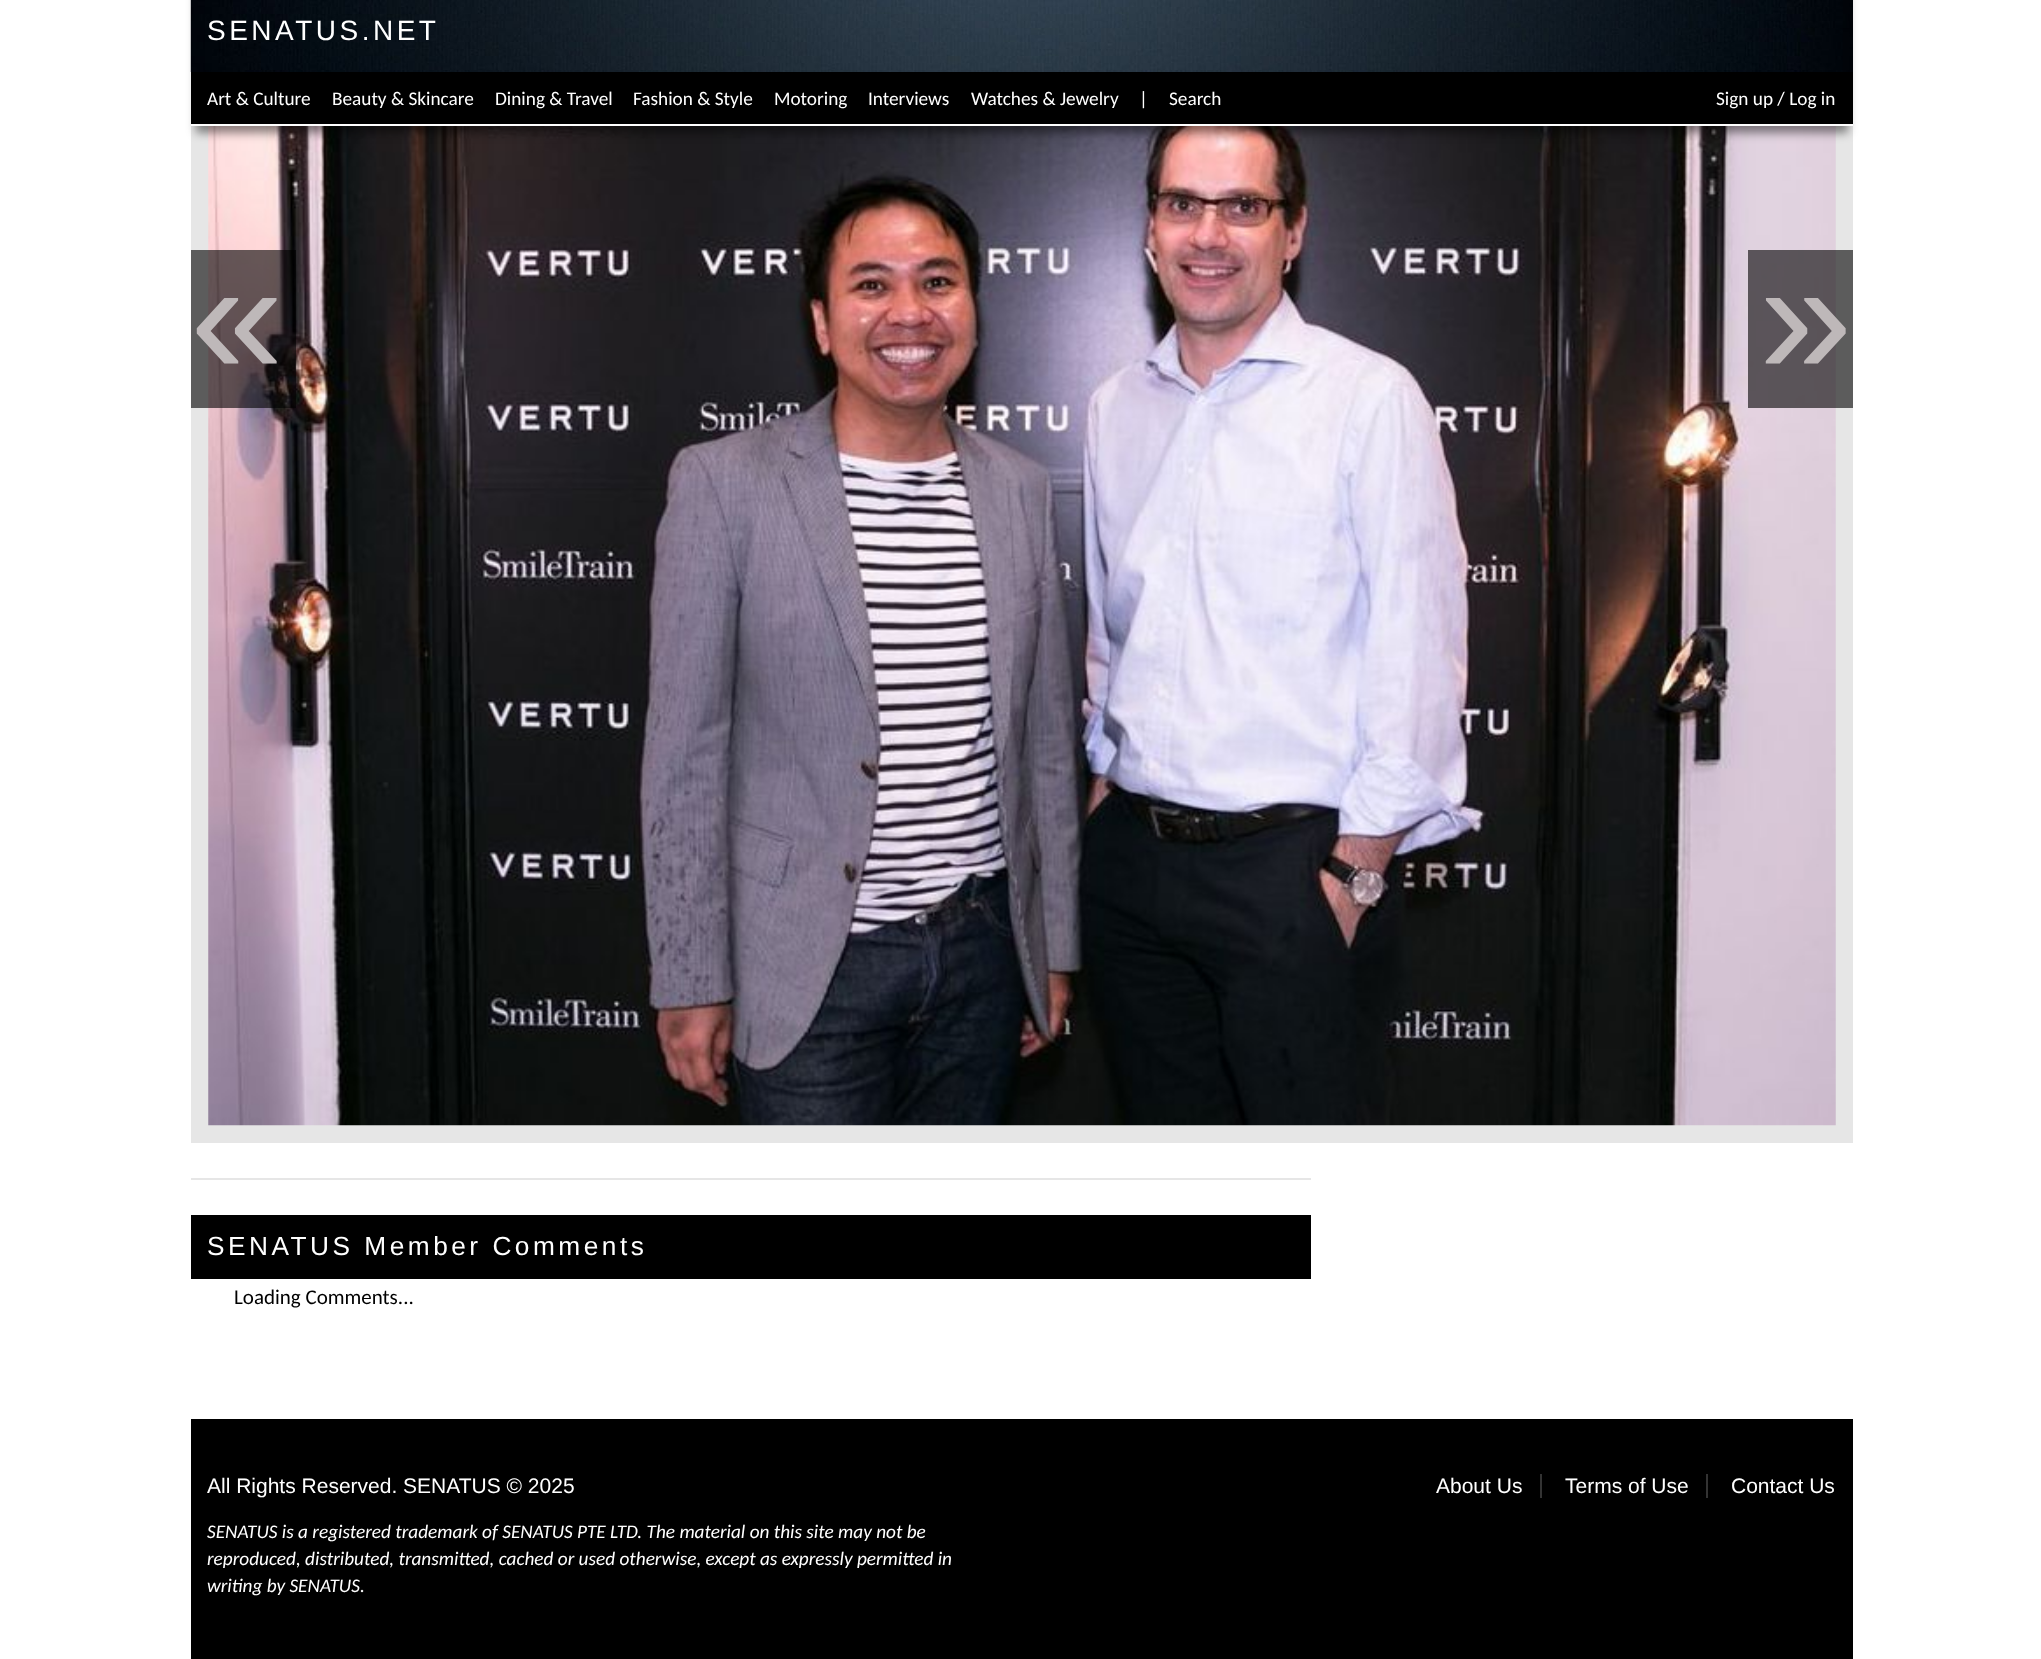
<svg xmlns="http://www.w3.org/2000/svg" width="2041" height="1659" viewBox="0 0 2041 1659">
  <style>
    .t1 { font: 28px Liberation Sans; letter-spacing: 3.5px; fill: #fff; }
    .t2 { font: 19.25px Carlito; fill: #fff; }
    .t3 { font: 168px Liberation Sans; fill: #beb8b9; }
    .t4 { font: 26.25px Liberation Sans; letter-spacing: 3.5px; fill: #fff; }
    .t5 { font: 21px Carlito; fill: #000; }
    .t6 { font: 21px Liberation Sans; fill: #fff; }
    .t7 { font: italic 19.25px Carlito; fill: #fff; }
  </style>
  <rect width="100%" height="100%" fill="#fff"/>
  <rect x="191" y="126" width="1662" height="1017" fill="#e6e6e6"/>
  <image x="208" y="126" width="1628" height="1000" href="images/2.png"/>
  <rect x="196" y="-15" width="1652" height="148" fill="#00000073" filter="blur(5px)"/>
  <image x="190" y="0" width="1663" height="72" href="images/1.png"/>
  <text x="207" y="40" class="t1">SENATUS.NET</text>
  <rect x="191" y="72" width="1662" height="52" fill="#000"/>
  <rect x="191" y="124" width="1662" height="2" fill="#fff"/>
  <text x="207" y="105" class="t2">Art &amp; Culture</text>
  <text x="332" y="105" class="t2">Beauty &amp; Skincare</text>
  <text x="495" y="105" class="t2">Dining &amp; Travel</text>
  <text x="633" y="105" class="t2">Fashion &amp; Style</text>
  <text x="774" y="105" class="t2">Motoring</text>
  <text x="868" y="105" class="t2">Interviews</text>
  <text x="971" y="105" class="t2">Watches &amp; Jewelry</text>
  <text x="1139" y="105" class="t2">|</text>
  <text x="1169" y="105" class="t2">Search</text>
  <text x="1716" y="105" class="t2">Sign up / Log in</text>
  <rect x="191" y="250" width="105" height="158" fill="#00000099"/>
  <text x="190" y="375" class="t3">«</text>
  <rect x="1748" y="250" width="105" height="158" fill="#00000099"/>
  <text x="1759" y="375" class="t3">»</text>
  <rect x="191" y="1178" width="1120" height="2" fill="#e6e6e6"/>
  <rect x="191" y="1215" width="1120" height="64" fill="#000"/>
  <text x="207" y="1255" class="t4">SENATUS Member Comments</text>
  <text x="234" y="1304" class="t5">Loading Comments...</text>
  <rect x="191" y="1419" width="1662" height="240" fill="#000"/>
  <text x="207" y="1493" class="t6">All Rights Reserved. SENATUS © 2025</text>
  <text x="1436" y="1493" class="t6">About Us</text>
  <rect x="1540" y="1474" width="2" height="24" fill="#333"/>
  <text x="1565" y="1493" class="t6">Terms of Use</text>
  <rect x="1706" y="1474" width="2" height="24" fill="#333"/>
  <text x="1731" y="1493" class="t6">Contact Us</text>
  <text x="207" y="1538" class="t7">SENATUS is a registered trademark of SENATUS PTE LTD. The material on this site may not be</text>
  <text x="207" y="1565" class="t7">reproduced, distributed, transmitted, cached or used otherwise, except as expressly permitted in</text>
  <text x="207" y="1592" class="t7">writing by SENATUS.</text>
</svg>
